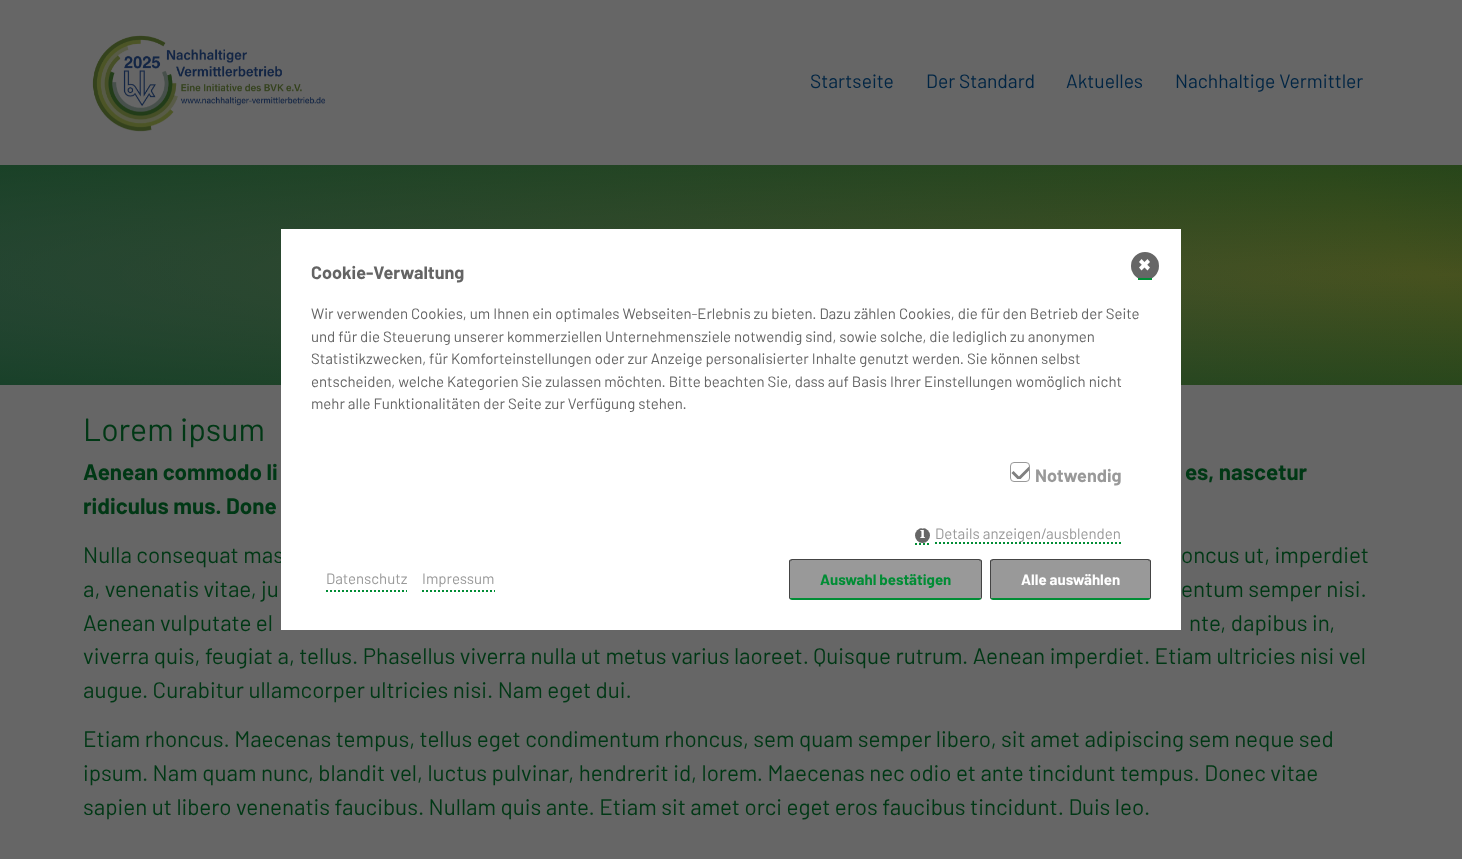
<svg xmlns="http://www.w3.org/2000/svg" width="1462" height="859" viewBox="0 0 1462 859">
  <style>
    .t1 { font: 19.25px Barlow; fill: #002544; }
    .t2 { font: 32px Barlow; fill: #003815; }
    .t3 { font: bold 22.4px Barlow; fill: #003815; }
    .t4 { font: 22.4px Barlow; fill: #003815; }
    .t5 { font: bold 18px Barlow; fill: #646464; }
    .t6 { font: 15px Barlow; fill: #646464; }
    .t7 { font: bold 18px Barlow; fill: #999; }
    .t8 { font: bold 15px Noto Serif; fill: #fff; }
    .t9 { font: 15px Barlow; fill: #999; }
    .t10 { font: bold 15px Barlow; fill: #008d35; }
    .t11 { font: bold 15px Barlow; fill: #fff; }
  </style>
  <defs>
    <linearGradient id="g1" gradientUnits="userSpaceOnUse" x1="676" y1="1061" x2="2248" y2="-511"><stop offset="0" stop-color="#3e4e48"/><stop offset="0.49" stop-color="#47521f"/><stop offset="0.82" stop-color="#2a3e18"/></linearGradient>
    <radialGradient id="g2" gradientUnits="userSpaceOnUse" cx="0" cy="0" r="1" gradientTransform="matrix(2068 0 0 156 1462 275)"><stop offset="0" stop-color="#003815" stop-opacity="0"/><stop offset="1" stop-color="#003815" stop-opacity="0.6"/></radialGradient>
    <clipPath id="clip1"><rect x="1011" y="459" width="20" height="20"/></clipPath>
    <clipPath id="clip2"><rect x="1010" y="462" width="20" height="20" rx="4"/></clipPath>
  </defs>
  <rect width="100%" height="100%" fill="#666"/>
  <image x="92" y="35" width="234" height="97" href="images/1.png"/>
  <text x="810" y="88" class="t1">Startseite</text>
  <text x="926" y="88" class="t1">Der Standard</text>
  <text x="1066" y="88" class="t1">Aktuelles</text>
  <text x="1175" y="88" class="t1">Nachhaltige Vermittler</text>
  <rect x="0" y="165" width="1462" height="220" fill="url(#g1)"/>
  <rect x="0" y="165" width="1462" height="220" fill="url(#g2)"/>
  <text x="83" y="441" class="t2">Lorem ipsum</text>
  <text x="83" y="480" class="t3">Aenean commodo li</text>
  <text x="1185" y="480" class="t3">es, nascetur</text>
  <text x="83" y="514" class="t3">ridiculus mus. Done</text>
  <text x="83" y="563" class="t4">Nulla consequat mas</text>
  <text x="1181" y="563" class="t4">oncus ut, imperdiet</text>
  <text x="83" y="597" class="t4">a, venenatis vitae, ju</text>
  <text x="1181" y="597" class="t4">entum semper nisi.</text>
  <text x="83" y="631" class="t4">Aenean vulputate el</text>
  <text x="1189" y="631" class="t4">nte, dapibus in,</text>
  <text x="83" y="664" class="t4">viverra quis, feugiat a, tellus. Phasellus viverra nulla ut metus varius laoreet. Quisque rutrum. Aenean imperdiet. Etiam ultricies nisi vel</text>
  <text x="83" y="698" class="t4">augue. Curabitur ullamcorper ultricies nisi. Nam eget dui.</text>
  <text x="83" y="747" class="t4">Etiam rhoncus. Maecenas tempus, tellus eget condimentum rhoncus, sem quam semper libero, sit amet adipiscing sem neque sed</text>
  <text x="83" y="781" class="t4">ipsum. Nam quam nunc, blandit vel, luctus pulvinar, hendrerit id, lorem. Maecenas nec odio et ante tincidunt tempus. Donec vitae</text>
  <text x="83" y="815" class="t4">sapien ut libero venenatis faucibus. Nullam quis ante. Etiam sit amet orci eget eros faucibus tincidunt. Duis leo.</text>
  <rect x="281" y="229" width="900" height="401" fill="#fff"/>
  <text x="311" y="279" class="t5">Cookie-Verwaltung</text>
  <text x="311" y="319" class="t6">Wir verwenden Cookies, um Ihnen ein optimales Webseiten-Erlebnis zu bieten. Dazu zählen Cookies, die für den Betrieb der Seite</text>
  <text x="311" y="342" class="t6">und für die Steuerung unserer kommerziellen Unternehmensziele notwendig sind, sowie solche, die lediglich zu anonymen</text>
  <text x="311" y="364" class="t6">Statistikzwecken, für Komforteinstellungen oder zur Anzeige personalisierter Inhalte genutzt werden. Sie können selbst</text>
  <text x="311" y="387" class="t6">entscheiden, welche Kategorien Sie zulassen möchten. Bitte beachten Sie, dass auf Basis Ihrer Einstellungen womöglich nicht</text>
  <text x="311" y="409" class="t6">mehr alle Funktionalitäten der Seite zur Verfügung stehen.</text>
  <g clip-path="url(#clip1)">
    <g clip-path="url(#clip2)">
      <path d="M1012.5 472L1019 478.5L1034 463.5" fill="none" stroke="#808080" stroke-width="3"/>
    </g>
  </g>
  <rect x="1010.5" y="462.5" width="19" height="19" rx="3.5" fill="none" stroke="#999"/>
  <text x="1035" y="482" class="t7">Notwendig</text>
  <path d="M915 544H930" fill="none" stroke="#008d35" stroke-width="2" stroke-dasharray="2 2"/>
  <path d="M935 543H1121" fill="none" stroke="#008d35" stroke-width="2" stroke-dasharray="2 2"/>
  <circle cx="922.5" cy="535.5" r="7.5" fill="#666"/>
  <text x="920" y="538" class="t8">i</text>
  <text x="935" y="539" class="t9">Details anzeigen/ausblenden</text>
  <circle cx="1145" cy="266" r="14" fill="#666"/>
  <rect x="1138" y="278" width="14" height="2" fill="#008d35"/>
  <path d="M1147.5 259L1150 262L1141.5 270.5L1139 267.5Z" fill="#fff"/>
  <path d="M1139 262L1141.5 259L1150 267.5L1147.5 270.5Z" fill="#fff"/>
  <path d="M326 591H407" fill="none" stroke="#008d35" stroke-width="2" stroke-dasharray="2 2"/>
  <text x="326" y="584" class="t9">Datenschutz</text>
  <path d="M422 591H495" fill="none" stroke="#008d35" stroke-width="2" stroke-dasharray="2 2"/>
  <text x="422" y="584" class="t9">Impressum</text>
  <rect x="789" y="559" width="193" height="41" rx="3" fill="#999"/>
  <path d="M792 559L790 560L791 561L792 560H979L980 561L981 560L979 559Z" fill="#444"/>
  <path d="M982 597V562C982 561 982 560 981 560L980.5 560.5L981 562V597.5L981.5 599Z" fill="#444"/>
  <path d="M792 600H979L981 599V598H979H792H790V599Z" fill="#008d35"/>
  <path d="M789 562V597C789 598 789 598.5 789.5 599L790 597.5V562L790.5 560.5L790 560C789 560 789 561 789 562Z" fill="#444"/>
  <text x="820" y="585" class="t10">Auswahl bestätigen</text>
  <rect x="990" y="559" width="161" height="41" rx="3" fill="#999"/>
  <path d="M993 559L991 560L992 561L993 560H1148L1149 561L1150 560L1148 559Z" fill="#444"/>
  <path d="M1151 597V562C1151 561 1151 560 1150 560L1149.5 560.5L1150 562V597.5L1150.5 599Z" fill="#444"/>
  <path d="M993 600H1148L1150 599V598H1149H993H991V599Z" fill="#008d35"/>
  <path d="M990 562V597C990 598 990 598.5 990.5 599L991 597.5V562L991.5 560.5L991 560C990 560 990 561 990 562Z" fill="#444"/>
  <text x="1021" y="585" class="t11">Alle auswählen</text>
</svg>
